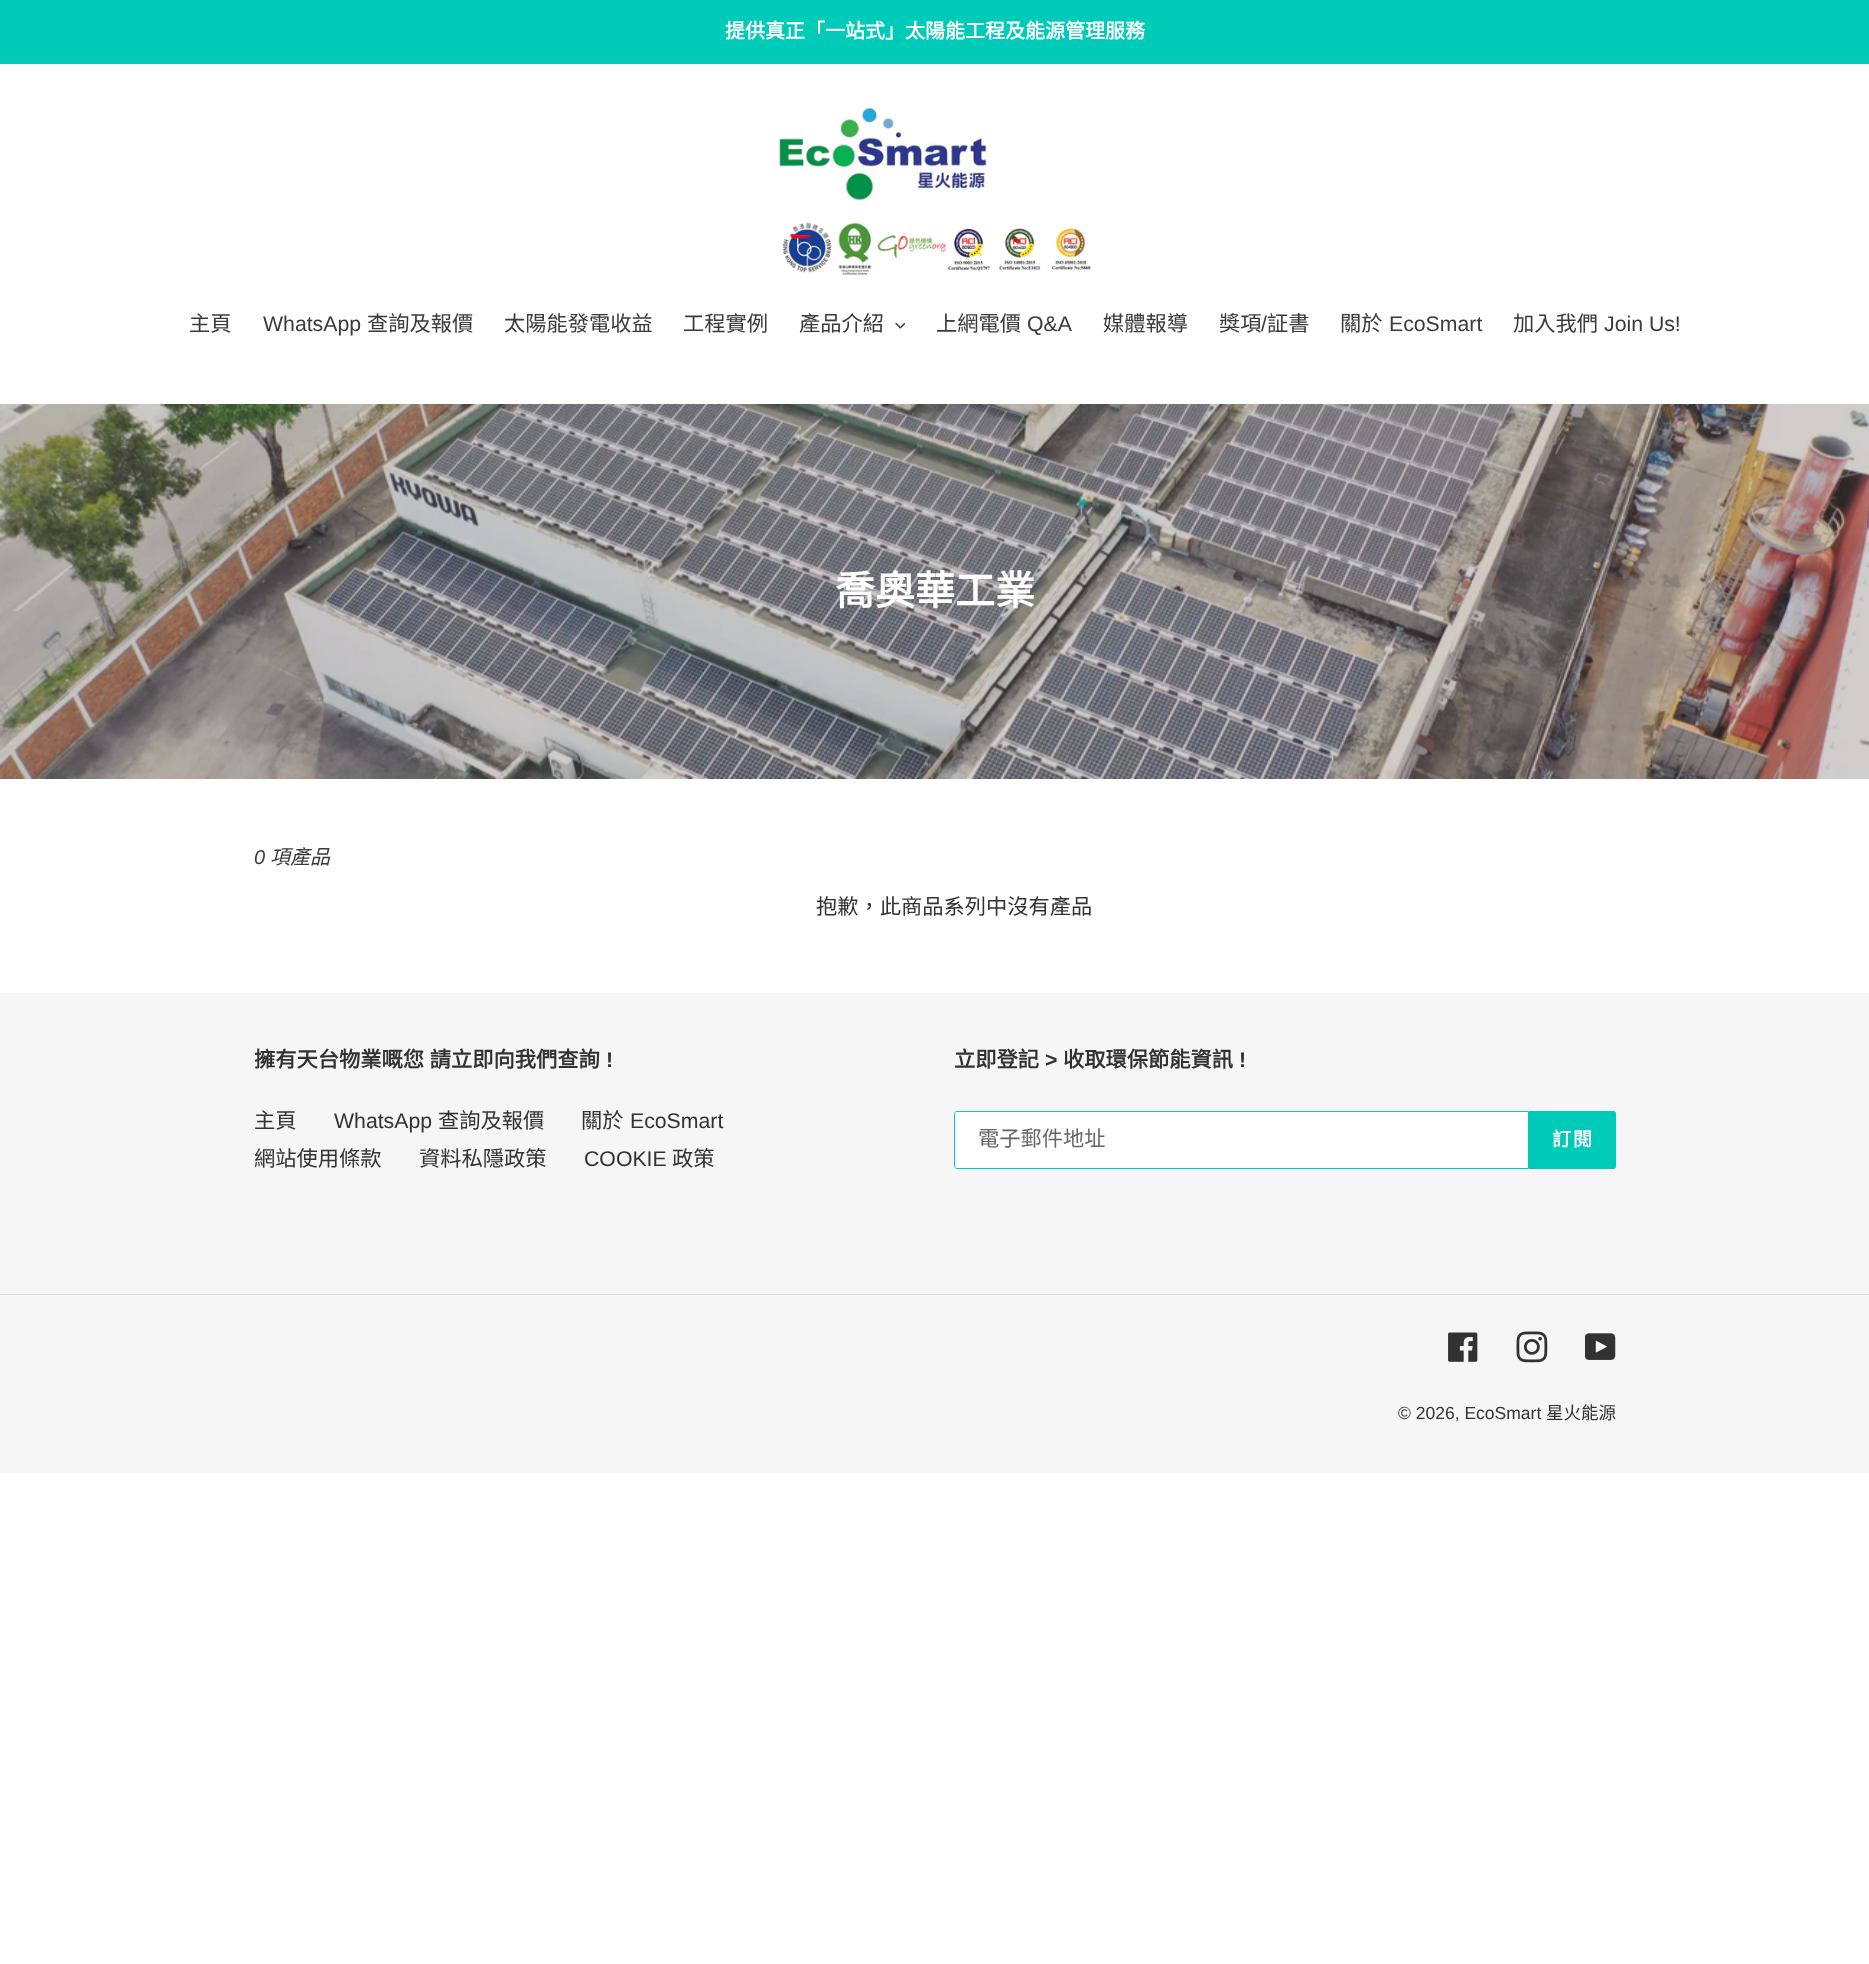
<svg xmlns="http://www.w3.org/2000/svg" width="1869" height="1964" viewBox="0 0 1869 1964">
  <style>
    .t1 { font: bold 20px Noto Sans CJK TC; fill: #fff; }
    .t2 { font: 21.25px Noto Sans CJK TC; fill: #3a3a3a; }
    .t3 { font: 21.25px Liberation Sans; fill: #3a3a3a; }
    .t4 { font: bold 40px Noto Sans CJK TC; fill: #fff; }
    .t5 { font: italic 20px Liberation Sans; fill: #3a3a3a; }
    .t6 { font: italic 20px Noto Sans CJK TC; fill: #3a3a3a; }
    .t7 { font: 21.25px Noto Sans CJK TC; fill: #333232; }
    .t8 { font: bold 21.25px Noto Sans CJK TC; fill: #333232; }
    .t9 { font: bold 21.25px Arimo; fill: #333232; }
    .t10 { font: 21.25px Liberation Sans; fill: #333232; }
    .t11 { font: 21.25px Noto Sans CJK TC; fill: #666; }
    .t12 { font: bold 19px Noto Sans CJK TC; letter-spacing: 2px; fill: #fff; }
    .t13 { font: 17.5px Liberation Sans; fill: #333232; }
    .t14 { font: 17.5px Noto Sans CJK TC; fill: #333232; }
  </style>
  <rect width="100%" height="100%" fill="#fff"/>
  <rect x="0" y="0" width="1869" height="64" fill="#00cab8"/>
  <text x="725" y="38" class="t1">提供真正「一站式」太陽能工程及能源管理服務</text>
  <image x="778" y="107" width="313" height="168" href="images/1.png"/>
  <text x="189" y="331" class="t2">主頁</text>
  <text x="263" y="331" class="t3">WhatsApp</text>
  <text x="367" y="331" class="t2">查詢及報價</text>
  <text x="504" y="331" class="t2">太陽能發電收益</text>
  <text x="683" y="331" class="t2">工程實例</text>
  <text x="799" y="331" class="t2">產品介紹</text>
  <image x="895" y="322" width="10" height="7" href="images/2.png"/>
  <text x="936" y="331" class="t2">上網電價</text>
  <text x="1027" y="331" class="t3">Q&amp;A</text>
  <text x="1103" y="331" class="t2">媒體報導</text>
  <text x="1219" y="331" class="t2">獎項</text>
  <text x="1261" y="331" class="t3">/</text>
  <text x="1267" y="331" class="t2">証書</text>
  <text x="1340" y="331" class="t2">關於</text>
  <text x="1389" y="331" class="t3">EcoSmart</text>
  <text x="1513" y="331" class="t2">加入我們</text>
  <text x="1604" y="331" class="t3">Join Us!</text>
  <image x="0" y="404" width="1869" height="375" href="images/3.png"/>
  <text x="835" y="605" class="t4">喬奧華工業</text>
  <text x="254" y="864" class="t5">0</text>
  <text x="270" y="864" class="t6">項產品</text>
  <text x="816" y="914" class="t7">抱歉，此商品系列中沒有產品</text>
  <rect x="0" y="993" width="1869" height="480" fill="#f6f6f6"/>
  <text x="254" y="1067" word-spacing="1" class="t8">擁有天台物業嘅您 請立即向我們查詢</text>
  <text x="606" y="1067" class="t9">!</text>
  <text x="254" y="1128" class="t7">主頁</text>
  <text x="334" y="1128" class="t10">WhatsApp</text>
  <text x="438" y="1128" class="t7">查詢及報價</text>
  <text x="581" y="1128" class="t7">關於</text>
  <text x="630" y="1128" class="t10">EcoSmart</text>
  <text x="254" y="1166" class="t7">網站使用條款</text>
  <text x="419" y="1166" class="t7">資料私隱政策</text>
  <text x="584" y="1166" class="t10">COOKIE</text>
  <text x="672" y="1166" class="t7">政策</text>
  <text x="954" y="1067" class="t8">立即登記</text>
  <text x="1045" y="1067" class="t9">&gt;</text>
  <text x="1063" y="1067" class="t8">收取環保節能資訊</text>
  <text x="1239" y="1067" class="t9">!</text>
  <path d="M956.5 1111.5H1528.5V1168.5H956.5C955.5 1168.5 954.5 1167.5 954.5 1166.5V1113.5C954.5 1112.5 955.5 1111.5 956.5 1111.5Z" fill="#fff" stroke="#00cab8"/>
  <text x="978" y="1146" class="t11">電子郵件地址</text>
  <path d="M1529 1111H1613.5C1615 1111 1616 1112 1616 1113.5V1166.5C1616 1168 1615 1169 1613.5 1169H1529Z" fill="#00cab8"/>
  <text x="1552" y="1146" class="t12">訂閱</text>
  <rect x="0" y="1294" width="1869" height="1" fill="#ddd"/>
  <image x="1448" y="1332" width="30" height="30" href="images/4.png"/>
  <image x="1516" y="1331" width="32" height="32" href="images/5.png"/>
  <image x="1585" y="1333" width="31" height="27" href="images/6.png"/>
  <text x="1398" y="1419" class="t13">© 2026, EcoSmart</text>
  <text x="1546" y="1419" class="t14">星火能源</text>
</svg>
